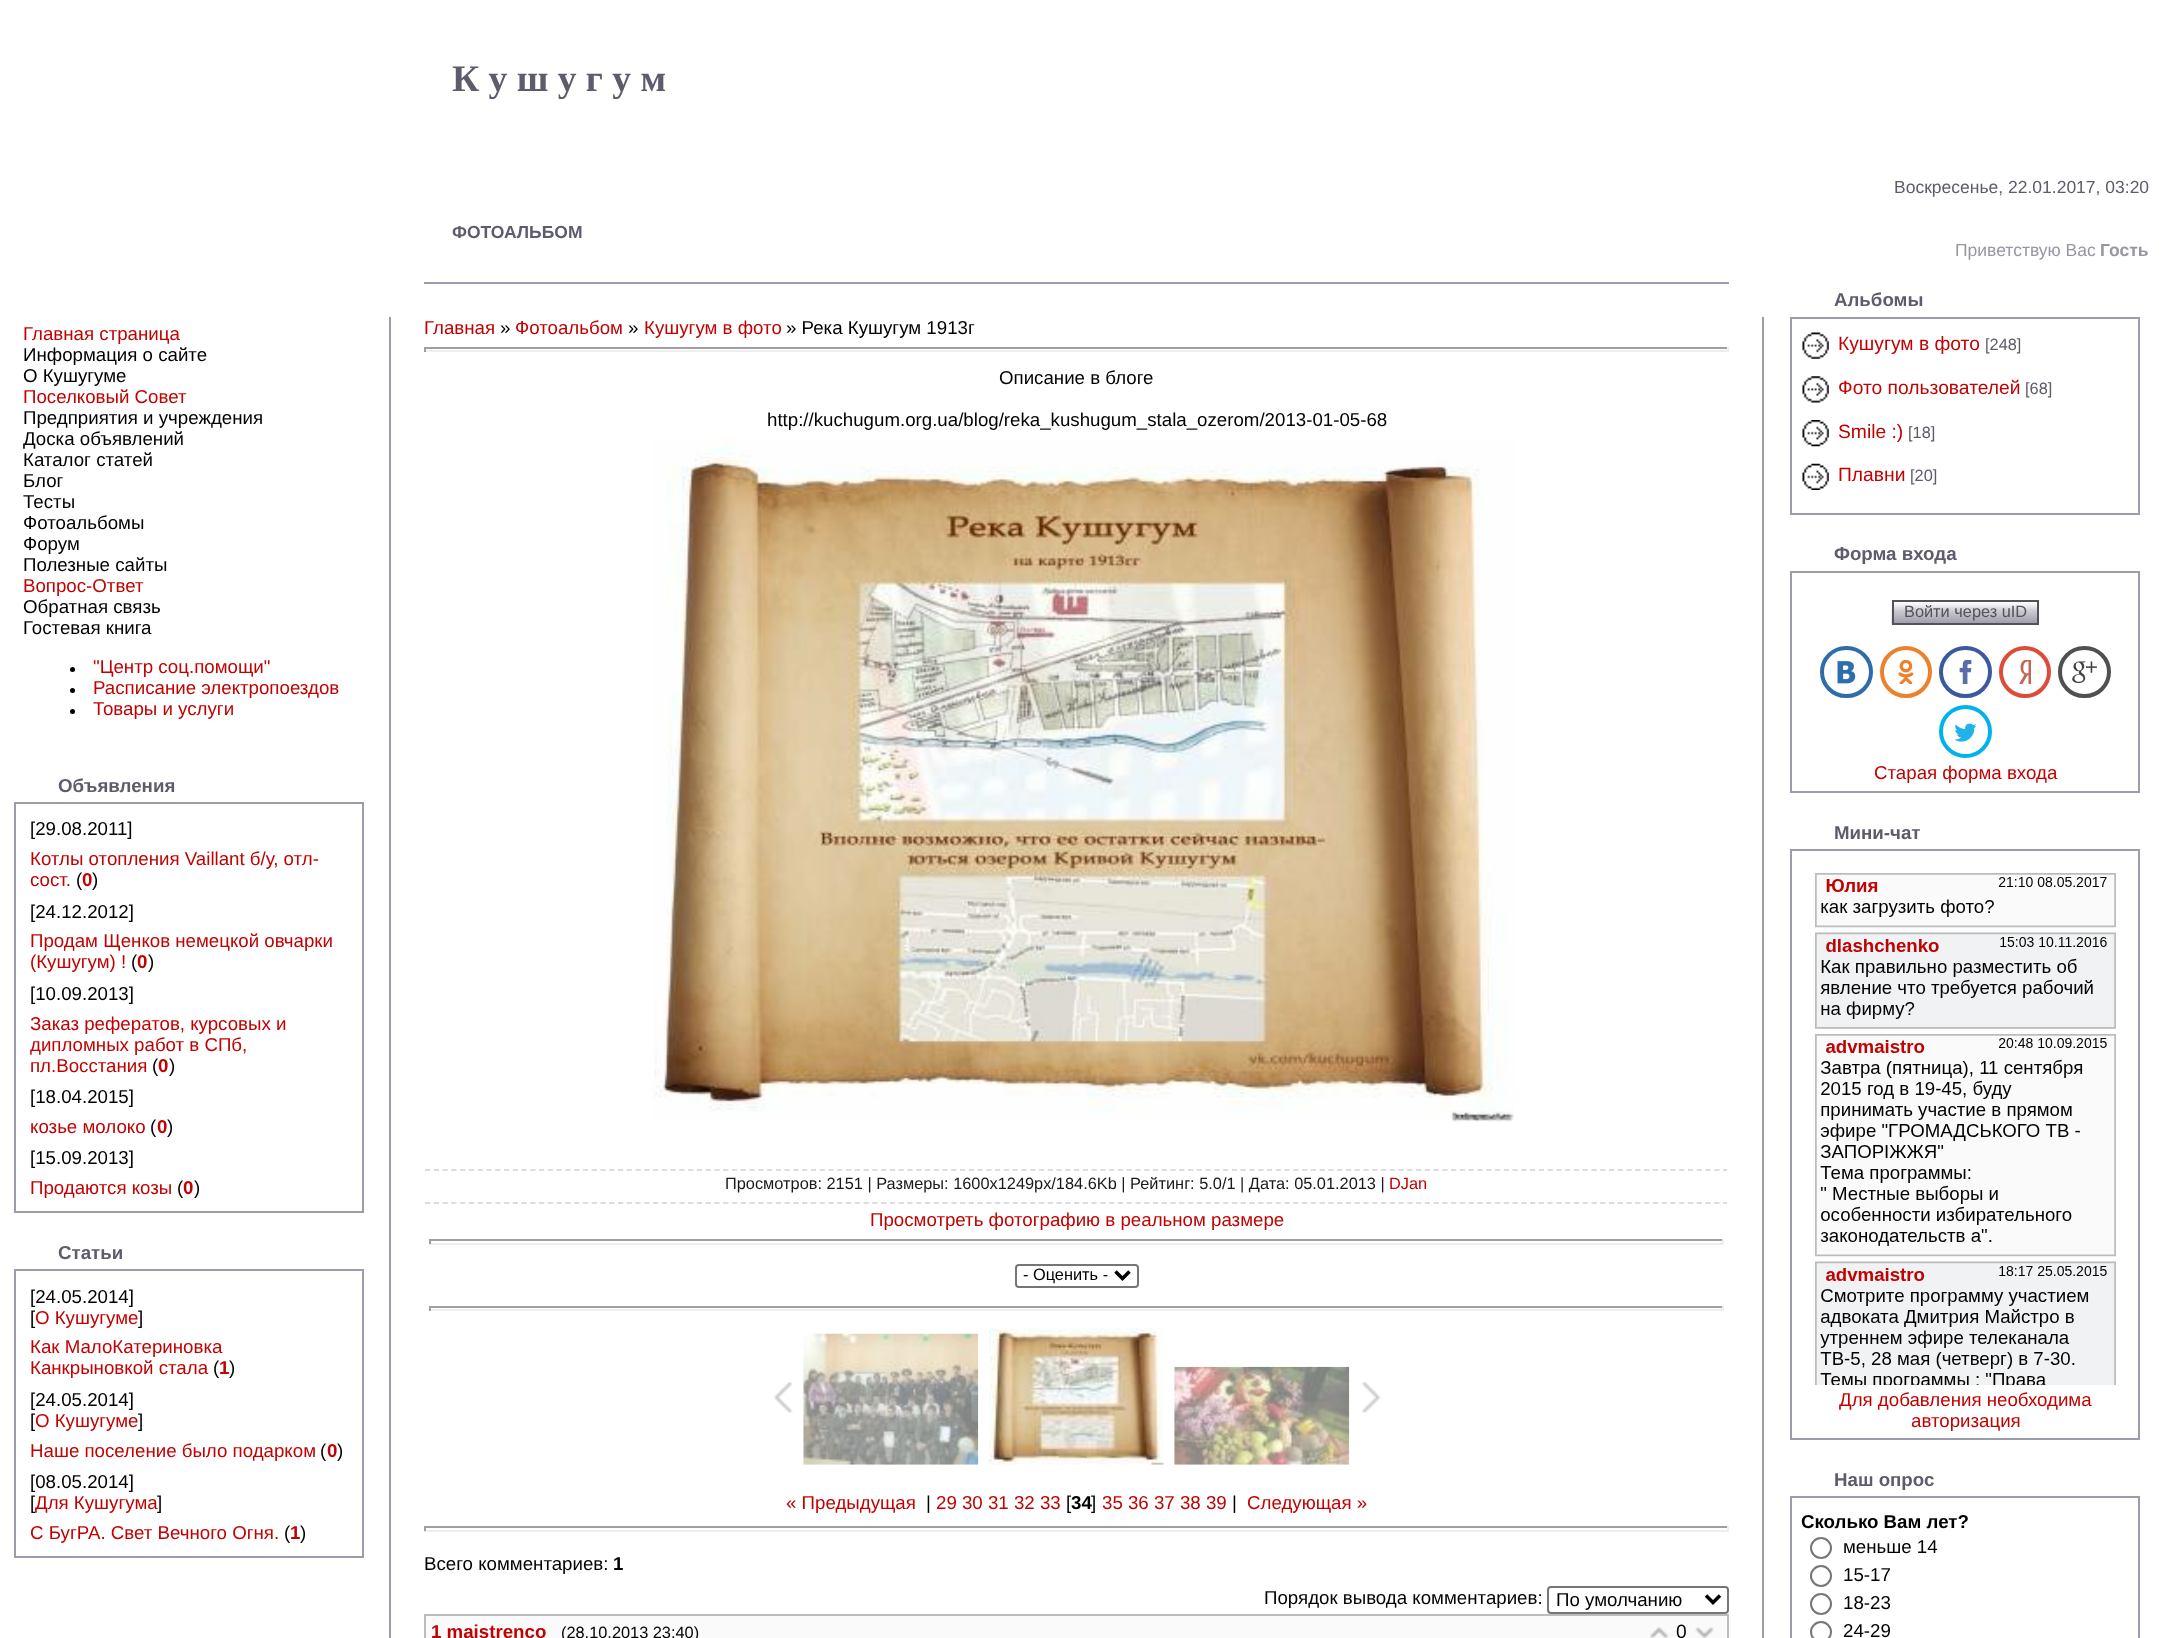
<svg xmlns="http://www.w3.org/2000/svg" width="2179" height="1638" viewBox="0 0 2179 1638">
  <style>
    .t1 { font: bold 37.5px Liberation Serif; fill: #5d5b6c; }
    .t2 { font: 17.5px Liberation Sans; fill: #5d5b6c; }
    .t3 { font: bold 17.5px Liberation Sans; fill: #5d5b6c; }
    .t4 { font: 17.5px Liberation Sans; fill: #9895a5; }
    .t5 { font: bold 17.5px Liberation Sans; fill: #9895a5; }
    .t6 { font: 18.7px Liberation Sans; fill: #c00202; }
    .t7 { font: 18.7px Liberation Sans; fill: #000; }
    .t8 { font: bold 18.7px Liberation Sans; fill: #5d5b6c; }
    .t9 { font: bold 18.7px Liberation Sans; fill: #c00202; }
    .t10 { font: 16.35px Liberation Sans; fill: #1a1a1a; }
    .t11 { font: 16.35px Liberation Sans; fill: #c00202; }
    .t12 { font: 16.35px Liberation Sans; fill: #000; }
    .t13 { font: bold 18.7px Liberation Sans; fill: #000; }
    .t14 { font: 19.25px Liberation Sans; fill: #000; }
    .t15 { font: 19.25px Liberation Sans; fill: #c00202; }
    .t16 { font: 16.35px Liberation Sans; fill: #5d5b6c; }
    .t17 { font: 16.35px Liberation Sans; fill: #53515a; }
  </style>
  <rect width="100%" height="100%" fill="#fff"/>
  <text x="452" y="91" class="t1">К у ш у г у м</text>
  <text x="1894" y="193" class="t2">Воскресенье, 22.01.2017, 03:20</text>
  <text x="452" y="238" class="t3">ФОТОАЛЬБОМ</text>
  <text x="1955" y="256" class="t4">Приветствую Вас</text>
  <text x="2100" y="256" class="t5">Гость</text>
  <text x="23" y="340" class="t6">Главная страница</text>
  <text x="23" y="361" class="t7">Информация о сайте</text>
  <text x="23" y="382" class="t7">О Кушугуме</text>
  <text x="23" y="403" class="t6">Поселковый Совет</text>
  <text x="23" y="424" class="t7">Предприятия и учреждения</text>
  <text x="23" y="445" class="t7">Доска объявлений</text>
  <text x="23" y="466" class="t7">Каталог статей</text>
  <text x="23" y="487" class="t7">Блог</text>
  <text x="23" y="508" class="t7">Тесты</text>
  <text x="23" y="529" class="t7">Фотоальбомы</text>
  <text x="23" y="550" class="t7">Форум</text>
  <text x="23" y="571" class="t7">Полезные сайты</text>
  <text x="23" y="592" class="t6">Вопрос-Ответ</text>
  <text x="23" y="613" class="t7">Обратная связь</text>
  <text x="23" y="634" class="t7">Гостевая книга</text>
  <circle cx="72.5" cy="669.5" r="2.5" fill="#000"/>
  <text x="93" y="673" class="t6">"Центр соц.помощи"</text>
  <circle cx="72.5" cy="690.5" r="2.5" fill="#000"/>
  <text x="93" y="694" class="t6">Расписание электропоездов</text>
  <circle cx="72.5" cy="711.5" r="2.5" fill="#000"/>
  <text x="93" y="715" class="t6">Товары и услуги</text>
  <text x="58" y="792" class="t8">Объявления</text>
  <rect x="15" y="803" width="348" height="409" fill="none" stroke="#9d9cad" stroke-width="2"/>
  <text x="30" y="835" class="t7">[29.08.2011]</text>
  <text x="30" y="865" class="t6">Котлы отопления Vaillant б/у, отл-</text>
  <text x="30" y="886" class="t6">сост.</text>
  <text x="76" y="886" class="t7">(</text>
  <text x="82" y="886" class="t9">0</text>
  <text x="92" y="886" class="t7">)</text>
  <text x="30" y="918" class="t7">[24.12.2012]</text>
  <text x="30" y="947" class="t6">Продам Щенков немецкой овчарки</text>
  <text x="30" y="968" class="t6">(Кушугум) !</text>
  <text x="131" y="968" class="t7">(</text>
  <text x="137" y="968" class="t9">0</text>
  <text x="148" y="968" class="t7">)</text>
  <text x="30" y="1000" class="t7">[10.09.2013]</text>
  <text x="30" y="1030" class="t6">Заказ рефератов, курсовых и</text>
  <text x="30" y="1051" class="t6">дипломных работ в СПб,</text>
  <text x="30" y="1072" class="t6">пл.Восстания</text>
  <text x="152" y="1072" class="t7">(</text>
  <text x="158" y="1072" class="t9">0</text>
  <text x="169" y="1072" class="t7">)</text>
  <text x="30" y="1103" class="t7">[18.04.2015]</text>
  <text x="30" y="1133" class="t6">козье молоко</text>
  <text x="150" y="1133" class="t7">(</text>
  <text x="157" y="1133" class="t9">0</text>
  <text x="167" y="1133" class="t7">)</text>
  <text x="30" y="1164" class="t7">[15.09.2013]</text>
  <text x="30" y="1194" class="t6">Продаются козы</text>
  <text x="177" y="1194" class="t7">(</text>
  <text x="183" y="1194" class="t9">0</text>
  <text x="194" y="1194" class="t7">)</text>
  <text x="58" y="1259" class="t8">Статьи</text>
  <rect x="15" y="1270" width="348" height="287" fill="none" stroke="#9d9cad" stroke-width="2"/>
  <text x="30" y="1303" class="t7">[24.05.2014]</text>
  <text x="30" y="1324" class="t7">[</text>
  <text x="35" y="1324" class="t6">О Кушугуме</text>
  <text x="138" y="1324" class="t7">]</text>
  <text x="30" y="1353" class="t6">Как МалоКатериновка</text>
  <text x="30" y="1374" class="t6">Канкрыновкой стала</text>
  <text x="213" y="1374" class="t7">(</text>
  <text x="219" y="1374" class="t9">1</text>
  <text x="229" y="1374" class="t7">)</text>
  <text x="30" y="1406" class="t7">[24.05.2014]</text>
  <text x="30" y="1427" class="t7">[</text>
  <text x="35" y="1427" class="t6">О Кушугуме</text>
  <text x="138" y="1427" class="t7">]</text>
  <text x="30" y="1457" class="t6">Наше поселение было подарком</text>
  <text x="320" y="1457" class="t7">(</text>
  <text x="327" y="1457" class="t9">0</text>
  <text x="337" y="1457" class="t7">)</text>
  <text x="30" y="1488" class="t7">[08.05.2014]</text>
  <text x="30" y="1509" class="t7">[</text>
  <text x="35" y="1509" class="t6">Для Кушугума</text>
  <text x="157" y="1509" class="t7">]</text>
  <text x="30" y="1539" class="t6">С БугРА. Свет Вечного Огня.</text>
  <text x="284" y="1539" class="t7">(</text>
  <text x="290" y="1539" class="t9">1</text>
  <text x="300" y="1539" class="t7">)</text>
  <rect x="424" y="282" width="1305" height="2" fill="#9d9cad"/>
  <rect x="389" y="317" width="2" height="1321" fill="#9d9cad"/>
  <text x="424" y="334" class="t6">Главная</text>
  <text x="500" y="334" class="t7">»</text>
  <text x="515" y="334" class="t6">Фотоальбом</text>
  <text x="628" y="334" class="t7">»</text>
  <text x="644" y="334" class="t6">Кушугум в фото</text>
  <text x="786" y="334" class="t7">» Река Кушугум 1913г</text>
  <rect x="424" y="347" width="1305" height="2" fill="#9f9f9f"/>
  <rect x="1727" y="347" width="2" height="5" fill="#eee"/>
  <rect x="424" y="350" width="1305" height="2" fill="#eee"/>
  <rect x="424" y="347" width="2" height="5" fill="#9f9f9f"/>
  <text x="999" y="384" class="t7">Описание в блоге</text>
  <text x="767" y="426" class="t7">http://kuchugum.org.ua/blog/reka_kushugum_stala_ozerom/2013-01-05-68</text>
  <image x="653" y="439" width="861" height="683" href="images/1.png"/>
  <path d="M425 1170H1727" fill="none" stroke="#ddd" stroke-width="1.8" stroke-dasharray="5.25 3.52"/>
  <path d="M425 1203H1727" fill="none" stroke="#ddd" stroke-width="1.8" stroke-dasharray="5.25 3.52"/>
  <text x="725" y="1189" class="t10">Просмотров: 2151 | Размеры: 1600x1249px/184.6Kb | Рейтинг: 5.0/1 | Дата: 05.01.2013 |</text>
  <text x="1389" y="1189" class="t11">DJan</text>
  <text x="870" y="1226" class="t6">Просмотреть фотографию в реальном размере</text>
  <rect x="429" y="1239" width="1295" height="2" fill="#9f9f9f"/>
  <rect x="1722" y="1239" width="2" height="5" fill="#eee"/>
  <rect x="429" y="1243" width="1295" height="2" fill="#eee"/>
  <rect x="429" y="1239" width="2" height="5" fill="#9f9f9f"/>
  <rect x="1016" y="1265" width="122" height="22" rx="3" fill="none" stroke="#767676" stroke-width="2"/>
  <path d="M1115.5 1271.5L1122.5 1278.5L1129.5 1271.5" fill="none" stroke="#000" stroke-width="3.5"/>
  <text x="1023" y="1280" class="t12">- Оценить -</text>
  <rect x="429" y="1306" width="1295" height="2" fill="#9f9f9f"/>
  <rect x="1722" y="1306" width="2" height="5" fill="#eee"/>
  <rect x="429" y="1309" width="1295" height="2" fill="#eee"/>
  <rect x="429" y="1306" width="2" height="5" fill="#9f9f9f"/>
  <image x="773" y="1382" width="20" height="31" href="images/2.png"/>
  <image x="803" y="1333" width="176" height="132" href="images/3.png"/>
  <image x="989" y="1328" width="175" height="137" href="images/4.png"/>
  <image x="1174" y="1366" width="176" height="99" href="images/5.png"/>
  <image x="1361" y="1382" width="20" height="31" href="images/6.png"/>
  <text x="786" y="1509" class="t6">« Предыдущая</text>
  <text x="926" y="1509" class="t7">|</text>
  <text x="936" y="1509" class="t6">29 30 31 32 33</text>
  <text x="1066" y="1509" class="t7">[</text>
  <text x="1071" y="1509" class="t13">34</text>
  <text x="1091" y="1509" class="t7">]</text>
  <text x="1102" y="1509" class="t6">35 36 37 38 39</text>
  <text x="1232" y="1509" class="t7">|</text>
  <text x="1247" y="1509" class="t6">Следующая »</text>
  <rect x="424" y="1526" width="1305" height="2" fill="#9f9f9f"/>
  <rect x="1727" y="1526" width="2" height="5" fill="#eee"/>
  <rect x="424" y="1530" width="1305" height="2" fill="#eee"/>
  <rect x="424" y="1526" width="2" height="5" fill="#9f9f9f"/>
  <text x="424" y="1570" class="t7">Всего комментариев:</text>
  <text x="613" y="1570" class="t13">1</text>
  <text x="1264" y="1604" class="t7">Порядок вывода комментариев:</text>
  <rect x="1548" y="1587" width="180" height="26" rx="3" fill="none" stroke="#767676" stroke-width="2"/>
  <path d="M1706 1595.5L1713 1602.5L1720 1595.5" fill="none" stroke="#000" stroke-width="3.5"/>
  <text x="1556" y="1606" class="t7">По умолчанию</text>
  <rect x="425" y="1615" width="1303" height="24" fill="#fafafa" stroke="#bcbcbc" stroke-width="2"/>
  <text x="431" y="1638" class="t9">1 maistrenco</text>
  <text x="561" y="1638" class="t12">(28.10.2013 23:40)</text>
  <image x="1650" y="1627" width="19" height="11" href="images/7.png"/>
  <text x="1676" y="1638" class="t14">0</text>
  <image x="1695" y="1627" width="19" height="11" href="images/8.png"/>
  <rect x="1762" y="317" width="2" height="1321" fill="#9d9cad"/>
  <text x="1834" y="306" class="t8">Альбомы</text>
  <rect x="1791" y="318" width="348" height="196" fill="none" stroke="#9d9cad" stroke-width="2"/>
  <image x="1802" y="332" width="27" height="27" href="images/9.png"/>
  <text x="1838" y="350" class="t15">Кушугум в фото</text>
  <text x="1985" y="350" class="t16">[248]</text>
  <image x="1802" y="376" width="27" height="27" href="images/10.png"/>
  <text x="1838" y="394" class="t15">Фото пользователей</text>
  <text x="2025" y="394" class="t16">[68]</text>
  <image x="1802" y="420" width="27" height="27" href="images/11.png"/>
  <text x="1838" y="438" class="t15">Smile :)</text>
  <text x="1908" y="438" class="t16">[18]</text>
  <image x="1802" y="463" width="27" height="27" href="images/12.png"/>
  <text x="1838" y="481" class="t15">Плавни</text>
  <text x="1910" y="481" class="t16">[20]</text>
  <text x="1834" y="560" class="t8">Форма входа</text>
  <rect x="1791" y="572" width="348" height="220" fill="none" stroke="#9d9cad" stroke-width="2"/>
  <image x="1891" y="600" width="146" height="25" href="images/13.png"/>
  <rect x="1893" y="601" width="145" height="23" fill="none" stroke="#53515a" stroke-width="2"/>
  <text x="1904" y="617" class="t17">Войти через uID</text>
  <image x="1837" y="661" width="19" height="23" href="images/14.png"/>
  <rect x="1822" y="648" width="49" height="48" rx="24" fill="none" stroke="#2f6caa" stroke-width="4"/>
  <image x="1898" y="660" width="16" height="24" href="images/15.png"/>
  <circle cx="1906" cy="672" r="24" fill="none" stroke="#ed812b" stroke-width="4"/>
  <image x="1959" y="660" width="13" height="24" href="images/16.png"/>
  <rect x="1941" y="648" width="49" height="48" rx="24" fill="none" stroke="#3c599f" stroke-width="4"/>
  <image x="2019" y="660" width="12" height="24" href="images/17.png"/>
  <circle cx="2025" cy="672" r="24" fill="none" stroke="#dc4c39" stroke-width="4"/>
  <image x="2072" y="661" width="25" height="23" href="images/18.png"/>
  <rect x="2060" y="648" width="49" height="48" rx="24" fill="none" stroke="#505050" stroke-width="4"/>
  <image x="1954" y="723" width="23" height="19" href="images/19.png"/>
  <circle cx="1965.5" cy="731.5" r="24.5" fill="none" stroke="#00b3ec" stroke-width="4"/>
  <text x="1874" y="779" class="t6">Старая форма входа</text>
  <text x="1834" y="839" class="t8">Мини-чат</text>
  <rect x="1791" y="850" width="348" height="589" fill="none" stroke="#9d9cad" stroke-width="2"/>
  <image x="1815" y="873" width="301" height="512" href="images/20.png"/>
  <text x="1839" y="1406" class="t6">Для добавления необходима</text>
  <text x="1911" y="1427" class="t6">авторизация</text>
  <text x="1834" y="1486" class="t8">Наш опрос</text>
  <rect x="1791" y="1497" width="348" height="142" fill="none" stroke="#9d9cad" stroke-width="2"/>
  <text x="1801" y="1528" class="t13">Сколько Вам лет?</text>
  <circle cx="1821" cy="1548" r="10" fill="none" stroke="#767676" stroke-width="2"/>
  <text x="1843" y="1553" class="t7">меньше 14</text>
  <circle cx="1821" cy="1576" r="10" fill="none" stroke="#767676" stroke-width="2"/>
  <text x="1843" y="1581" class="t7">15-17</text>
  <circle cx="1821" cy="1604" r="10" fill="none" stroke="#767676" stroke-width="2"/>
  <text x="1843" y="1609" class="t7">18-23</text>
  <circle cx="1821" cy="1632" r="10" fill="none" stroke="#767676" stroke-width="2"/>
  <text x="1843" y="1637" class="t7">24-29</text>
</svg>
